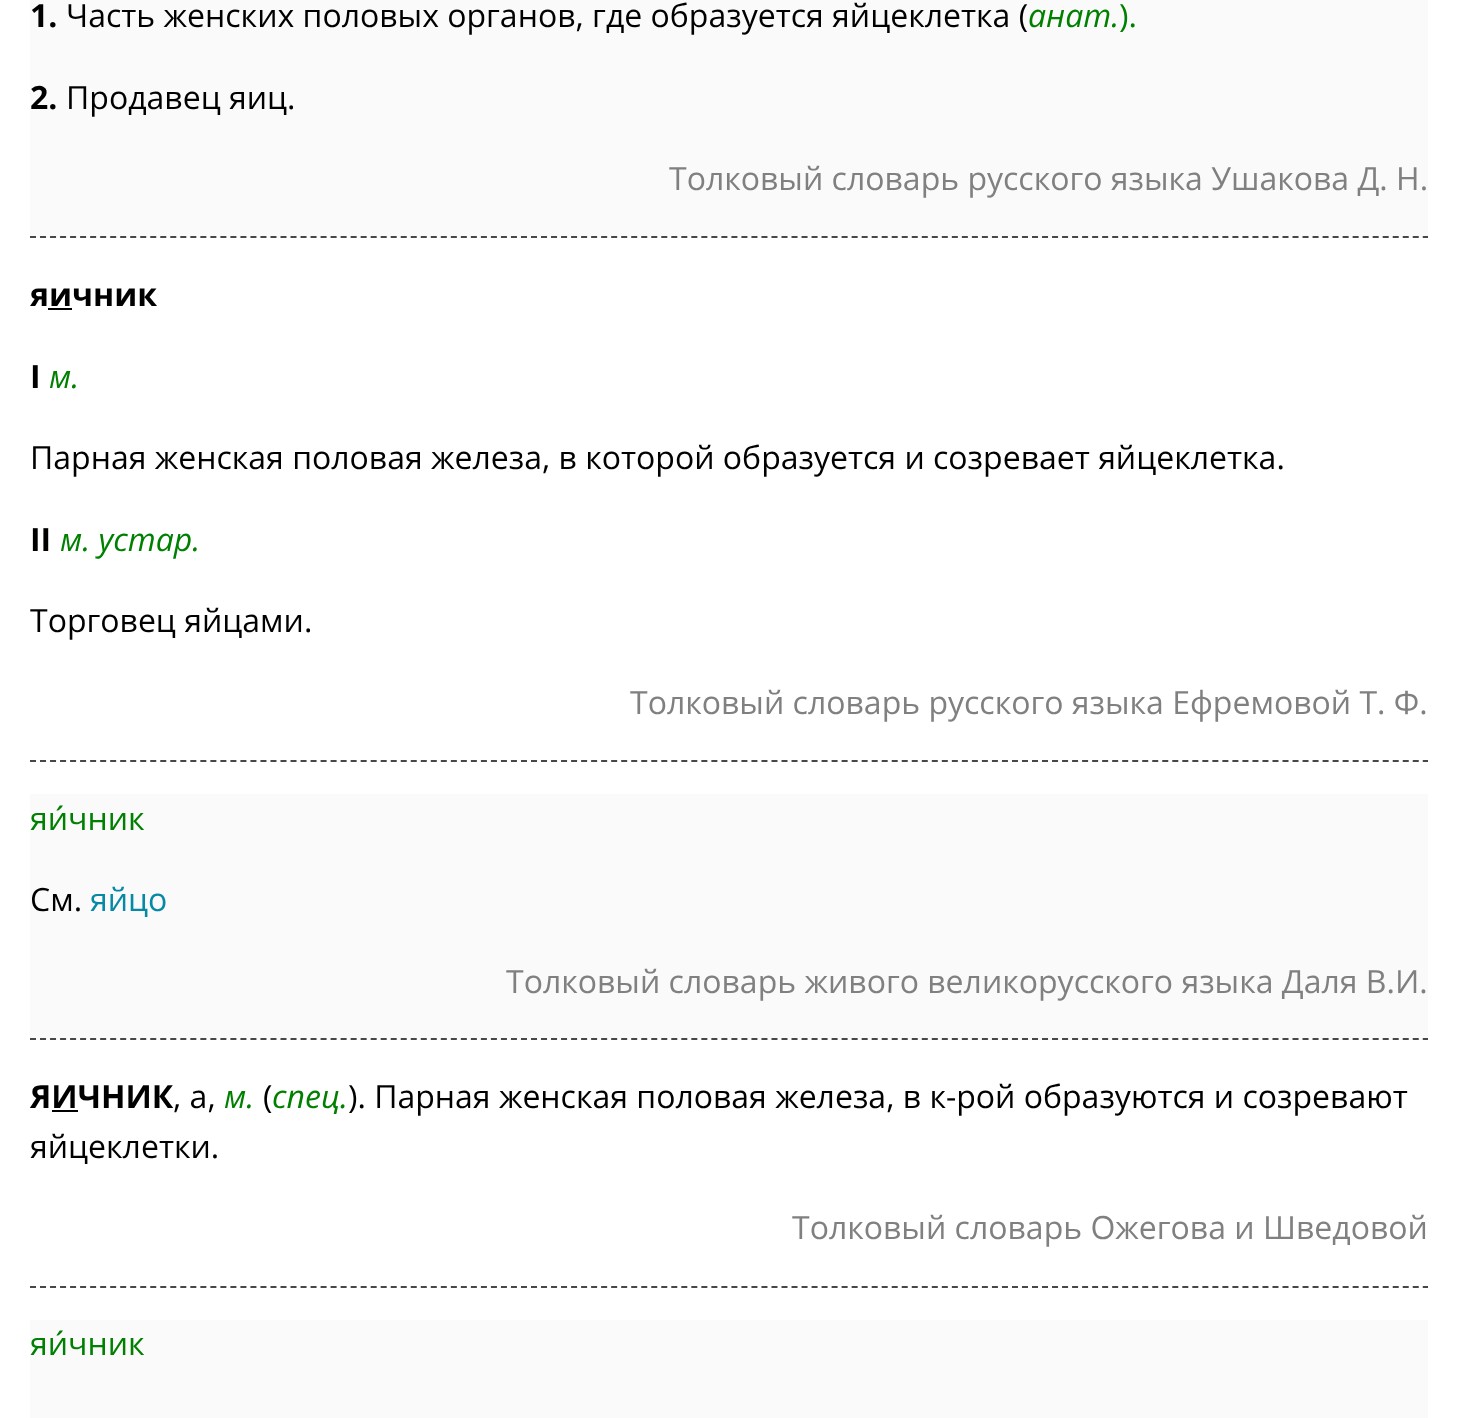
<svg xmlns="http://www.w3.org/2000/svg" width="1458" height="1418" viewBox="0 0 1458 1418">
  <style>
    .t1 { font: bold 32px Open Sans; fill: #000; }
    .t2 { font: 32px Open Sans; fill: #000; }
    .t3 { font: italic 32px Open Sans; fill: #008000; }
    .t4 { font: 32px Open Sans; fill: #008000; }
    .t5 { font: 32px Open Sans; fill: #808080; }
    .t6 { font: 32px Open Sans; fill: #0689a5; }
  </style>
  <rect width="100%" height="100%" fill="#fff"/>
  <rect x="30" y="0" width="1398" height="238" fill="#fafafa"/>
  <path d="M30 237H1428" fill="none" stroke="#474747" stroke-width="2" stroke-dasharray="6 4.02"/>
  <text x="30" y="27" class="t1">1.</text>
  <text x="66" y="27" class="t2">Часть женских половых органов, где образуется яйцеклетка (</text>
  <text x="1028" y="27" class="t3">анат.</text>
  <text x="1119" y="27" class="t4">).</text>
  <text x="30" y="109" class="t1">2.</text>
  <text x="66" y="109" class="t2">Продавец яиц.</text>
  <text x="669" y="190" class="t5">Толковый словарь русского языка Ушакова Д. Н.</text>
  <path d="M30 761H1428" fill="none" stroke="#474747" stroke-width="2" stroke-dasharray="6 4.02"/>
  <text x="30" y="306" class="t1">яичник</text>
  <rect x="48" y="308" width="24" height="2" fill="#000"/>
  <text x="30" y="388" class="t1">I</text>
  <text x="49" y="388" class="t3">м.</text>
  <text x="30" y="469" class="t2">Парная женская половая железа, в которой образуется и созревает яйцеклетка.</text>
  <text x="30" y="551" class="t1">II</text>
  <text x="60" y="551" class="t3">м. устар.</text>
  <text x="30" y="632" class="t2">Торговец яйцами.</text>
  <text x="630" y="714" class="t5">Толковый словарь русского языка Ефремовой Т. Ф.</text>
  <rect x="30" y="794" width="1398" height="246" fill="#fafafa"/>
  <path d="M30 1039H1428" fill="none" stroke="#474747" stroke-width="2" stroke-dasharray="6 4.02"/>
  <text x="30" y="830" class="t4">яи́чник</text>
  <text x="30" y="911" class="t2">См.</text>
  <text x="90" y="911" class="t6">яйцо</text>
  <text x="506" y="993" class="t5">Толковый словарь живого великорусского языка Даля В.И.</text>
  <path d="M30 1287H1428" fill="none" stroke="#474747" stroke-width="2" stroke-dasharray="6 4.02"/>
  <text x="30" y="1108" class="t1">ЯИЧНИК</text>
  <rect x="52" y="1110" width="26" height="2" fill="#000"/>
  <text x="173" y="1108" class="t2">, а,</text>
  <text x="224" y="1108" class="t3">м.</text>
  <text x="263" y="1108" class="t2">(</text>
  <text x="272" y="1108" class="t3">спец.</text>
  <text x="348" y="1108" class="t2">). Парная женская половая железа, в к-рой образуются и созревают</text>
  <text x="30" y="1158" class="t2">яйцеклетки.</text>
  <text x="792" y="1239" class="t5">Толковый словарь Ожегова и Шведовой</text>
  <rect x="30" y="1320" width="1398" height="98" fill="#fafafa"/>
  <text x="30" y="1355" class="t4">яи́чник</text>
</svg>
